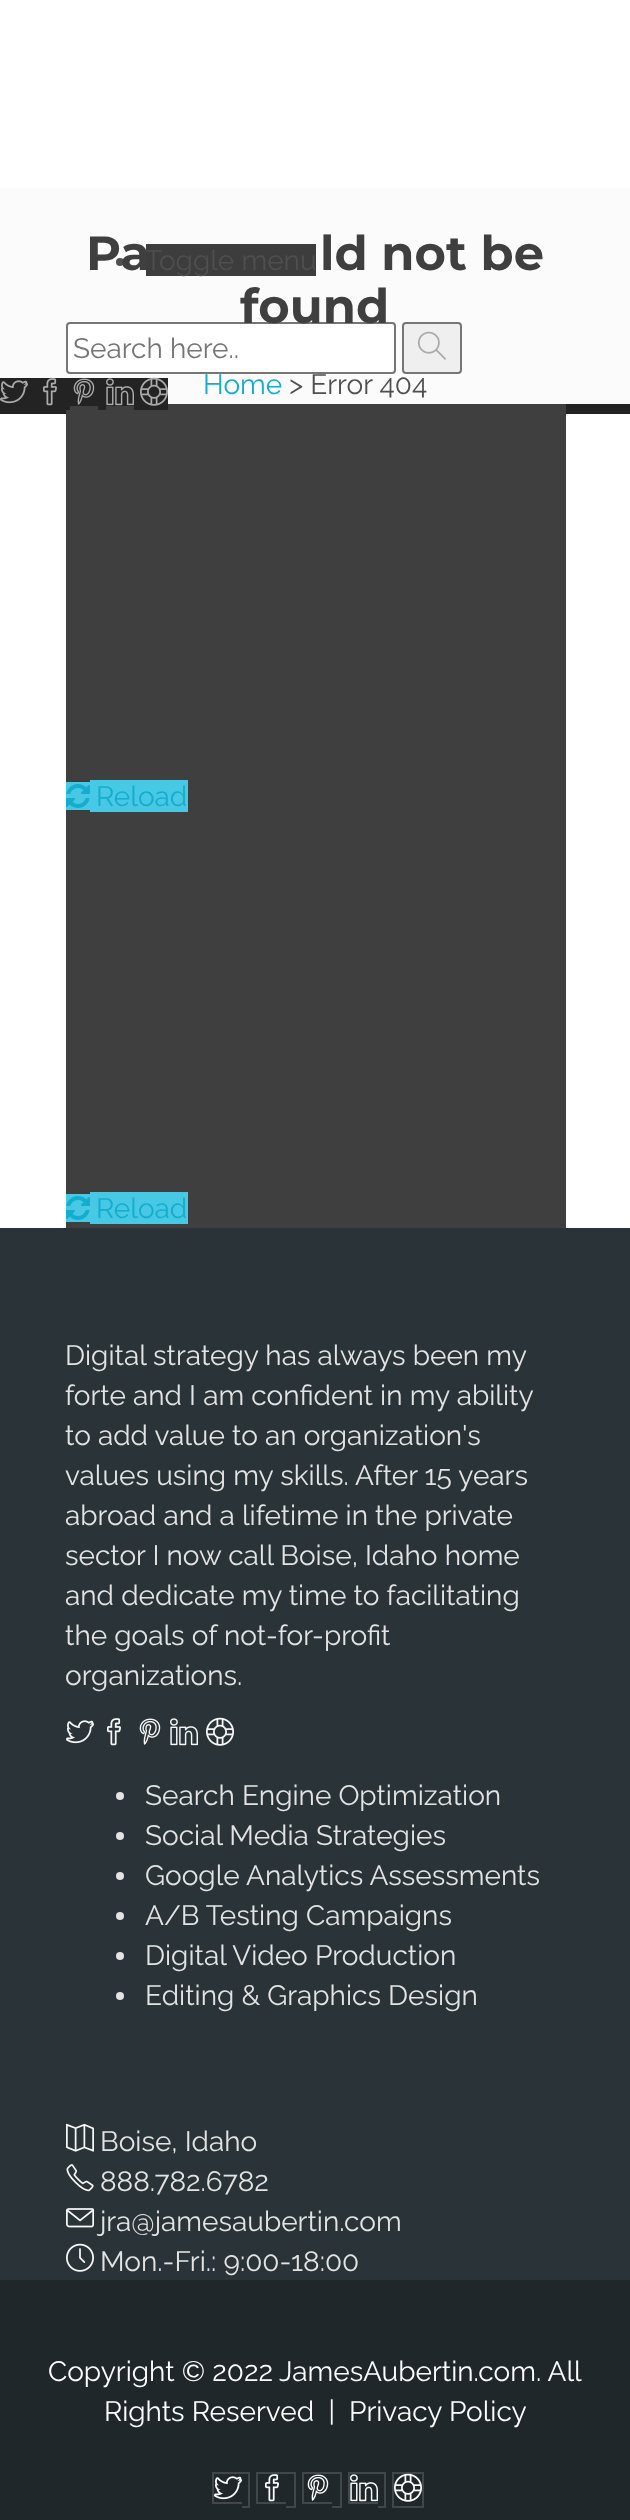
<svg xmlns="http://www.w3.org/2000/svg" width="630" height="2520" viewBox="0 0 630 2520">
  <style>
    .t1 { font: 100 28px Raleway; fill: #4f4f4f; }
    .t2 { font: 100 48px Montserrat; fill: #3f3f3f; }
    .t3 { font: 100 28px Raleway; fill: #16acce; }
    .t4 { font: 100 28px Raleway; fill: #757575; }
    .t5 { font: 100 28px Raleway; fill: #e3e3e3; }
    .t6 { font: 100 28px Raleway; fill: #fff; }
  </style>
  <rect width="100%" height="100%" fill="#fff"/>
  <rect x="0" y="188" width="630" height="216" fill="#fbfbfb"/>
  <circle cx="120" cy="262" r="4" fill="#4f4f4f"/>
  <rect x="146" y="244" width="170" height="32" fill="#3d3d3d"/>
  <text x="145" y="270" class="t1">Toggle menu</text>
  <text x="86" y="270" class="t2">Pa</text>
  <text x="320" y="270" class="t2">ld not be</text>
  <rect x="67" y="323" width="328" height="50" rx="3" fill="#fff" stroke="#767676" stroke-width="2"/>
  <text x="240" y="323" class="t2">found</text>
  <text x="203" y="394" class="t3">Home</text>
  <text x="289" y="394" class="t1">&gt; Error 404</text>
  <rect x="0" y="404" width="630" height="10" fill="#232323"/>
  <text x="73" y="358" class="t4">Search here..</text>
  <rect x="403" y="323" width="58" height="50" rx="3" fill="#efefef" stroke="#767676" stroke-width="2"/>
  <image x="417" y="331" width="29" height="29" href="images/1.png"/>
  <rect x="0" y="378" width="28" height="26" fill="#232323"/>
  <rect x="28" y="378" width="8" height="32" fill="#232323"/>
  <rect x="36" y="378" width="28" height="26" fill="#232323"/>
  <rect x="66" y="404" width="500" height="824" fill="#3f3f3f"/>
  <rect x="134" y="378" width="34" height="32" fill="#232323"/>
  <image x="140" y="377" width="28" height="29" href="images/2.png"/>
  <image x="43" y="378" width="14" height="28" href="images/3.png"/>
  <rect x="64" y="378" width="6" height="32" fill="#232323"/>
  <rect x="70" y="378" width="28" height="28" fill="#232323"/>
  <image x="73" y="378" width="22" height="27" href="images/4.png"/>
  <rect x="98" y="378" width="8" height="32" fill="#232323"/>
  <rect x="106" y="378" width="28" height="28" fill="#232323"/>
  <image x="0" y="380" width="28" height="24" href="images/5.png"/>
  <image x="106" y="378" width="28" height="28" href="images/6.png"/>
  <rect x="66" y="782" width="24" height="28" fill="#47c9e5"/>
  <rect x="90" y="780" width="98" height="32" fill="#47c9e5"/>
  <image x="66" y="784" width="24" height="24" href="images/7.png"/>
  <text x="96" y="806" class="t3">Reload</text>
  <rect x="66" y="1194" width="24" height="28" fill="#47c9e5"/>
  <rect x="90" y="1192" width="98" height="32" fill="#47c9e5"/>
  <image x="66" y="1196" width="24" height="24" href="images/7.png"/>
  <text x="96" y="1218" class="t3">Reload</text>
  <rect x="0" y="1228" width="630" height="1052" fill="#2a3338"/>
  <text x="65" y="1365" class="t5">Digital strategy has always been my</text>
  <text x="65" y="1405" class="t5">forte and I am confident in my ability</text>
  <text x="65" y="1445" class="t5">to add value to an organization's</text>
  <text x="65" y="1485" class="t5">values using my skills.</text>
  <text x="355" y="1485" class="t5">After 15 years</text>
  <text x="65" y="1525" class="t5">abroad and a lifetime in the private</text>
  <text x="65" y="1565" class="t5">sector I now call Boise, Idaho home</text>
  <text x="65" y="1605" class="t5">and dedicate my time to facilitating</text>
  <text x="65" y="1645" class="t5">the goals of not-for-profit</text>
  <text x="65" y="1685" class="t5">organizations.</text>
  <image x="66" y="1720" width="28" height="24" href="images/8.png"/>
  <image x="106" y="1718" width="15" height="28" href="images/9.png"/>
  <image x="139" y="1718" width="22" height="27" href="images/10.png"/>
  <image x="170" y="1718" width="28" height="28" href="images/11.png"/>
  <image x="206" y="1717" width="28" height="29" href="images/12.png"/>
  <circle cx="120" cy="1796" r="4" fill="#e3e3e3"/>
  <text x="145" y="1805" class="t5">Search Engine Optimization</text>
  <circle cx="120" cy="1836" r="4" fill="#e3e3e3"/>
  <text x="145" y="1845" class="t5">Social Media Strategies</text>
  <circle cx="120" cy="1876" r="4" fill="#e3e3e3"/>
  <text x="145" y="1885" class="t5">Google Analytics Assessments</text>
  <circle cx="120" cy="1916" r="4" fill="#e3e3e3"/>
  <text x="145" y="1925" class="t5">A/B Testing Campaigns</text>
  <circle cx="120" cy="1956" r="4" fill="#e3e3e3"/>
  <text x="145" y="1965" class="t5">Digital Video Production</text>
  <circle cx="120" cy="1996" r="4" fill="#e3e3e3"/>
  <text x="145" y="2005" class="t5">Editing &amp; Graphics Design</text>
  <image x="66" y="2123" width="28" height="29" href="images/13.png"/>
  <text x="100" y="2151" class="t5">Boise, Idaho</text>
  <image x="66" y="2164" width="28" height="28" href="images/14.png"/>
  <text x="100" y="2191" class="t5">888.782.6782</text>
  <image x="66" y="2208" width="29" height="20" href="images/15.png"/>
  <text x="100" y="2231" class="t5">jra@jamesaubertin.com</text>
  <image x="66" y="2243" width="28" height="29" href="images/16.png"/>
  <text x="100" y="2271" class="t5">Mon.-Fri.: 9:00-18:00</text>
  <rect x="0" y="2280" width="630" height="240" fill="#20272b"/>
  <text x="48" y="2381" class="t6">Copyright © 2022</text>
  <text x="279" y="2381" class="t6">JamesAubertin.com. All</text>
  <text x="104" y="2421" class="t6" xml:space="preserve">Rights Reserved  |</text>
  <text x="349" y="2421" class="t6">Privacy Policy</text>
  <path d="M212 2472H242V2474H214ZM242 2504H212L214 2502H242Z" fill="#41474b"/>
  <path d="M212 2504V2472L214 2474V2502Z" fill="#ffffff26"/>
  <path d="M242 2472H250L248 2474H242Z" fill="#41474b"/>
  <path d="M250 2472V2508L248 2506V2474Z" fill="#ffffff26"/>
  <path d="M256 2472H286V2474H258ZM286 2504H256L258 2502H286Z" fill="#41474b"/>
  <path d="M256 2504V2472L258 2474V2502Z" fill="#ffffff26"/>
  <path d="M286 2472H296L294 2474H286Z" fill="#41474b"/>
  <path d="M296 2472V2508L294 2506V2474Z" fill="#ffffff26"/>
  <path d="M302 2472H332V2474H304ZM332 2504H302L304 2502H332Z" fill="#41474b"/>
  <path d="M302 2504V2472L304 2474V2502Z" fill="#ffffff26"/>
  <path d="M332 2472H342L340 2474H332Z" fill="#41474b"/>
  <path d="M342 2472V2508L340 2506V2474Z" fill="#ffffff26"/>
  <path d="M348 2472H378V2474H350ZM378 2504H348L350 2502H378Z" fill="#41474b"/>
  <path d="M348 2504V2472L350 2474V2502Z" fill="#ffffff26"/>
  <path d="M378 2472H386L384 2474H378Z" fill="#41474b"/>
  <path d="M386 2472V2508L384 2506V2474Z" fill="#ffffff26"/>
  <rect x="393" y="2473" width="30" height="34" fill="none" stroke="#41474b" stroke-width="2"/>
  <image x="214" y="2476" width="28" height="24" href="images/17.png"/>
  <image x="264" y="2474" width="15" height="28" href="images/18.png"/>
  <image x="307" y="2474" width="22" height="27" href="images/19.png"/>
  <image x="350" y="2474" width="28" height="28" href="images/20.png"/>
  <image x="394" y="2473" width="28" height="29" href="images/21.png"/>
  <path d="M250 2508H242V2506H248Z" fill="#ffffff26"/>
  <path d="M296 2508H286V2506H294Z" fill="#ffffff26"/>
  <path d="M342 2508H332V2506H340Z" fill="#ffffff26"/>
  <path d="M386 2508H378V2506H384Z" fill="#ffffff26"/>
</svg>
